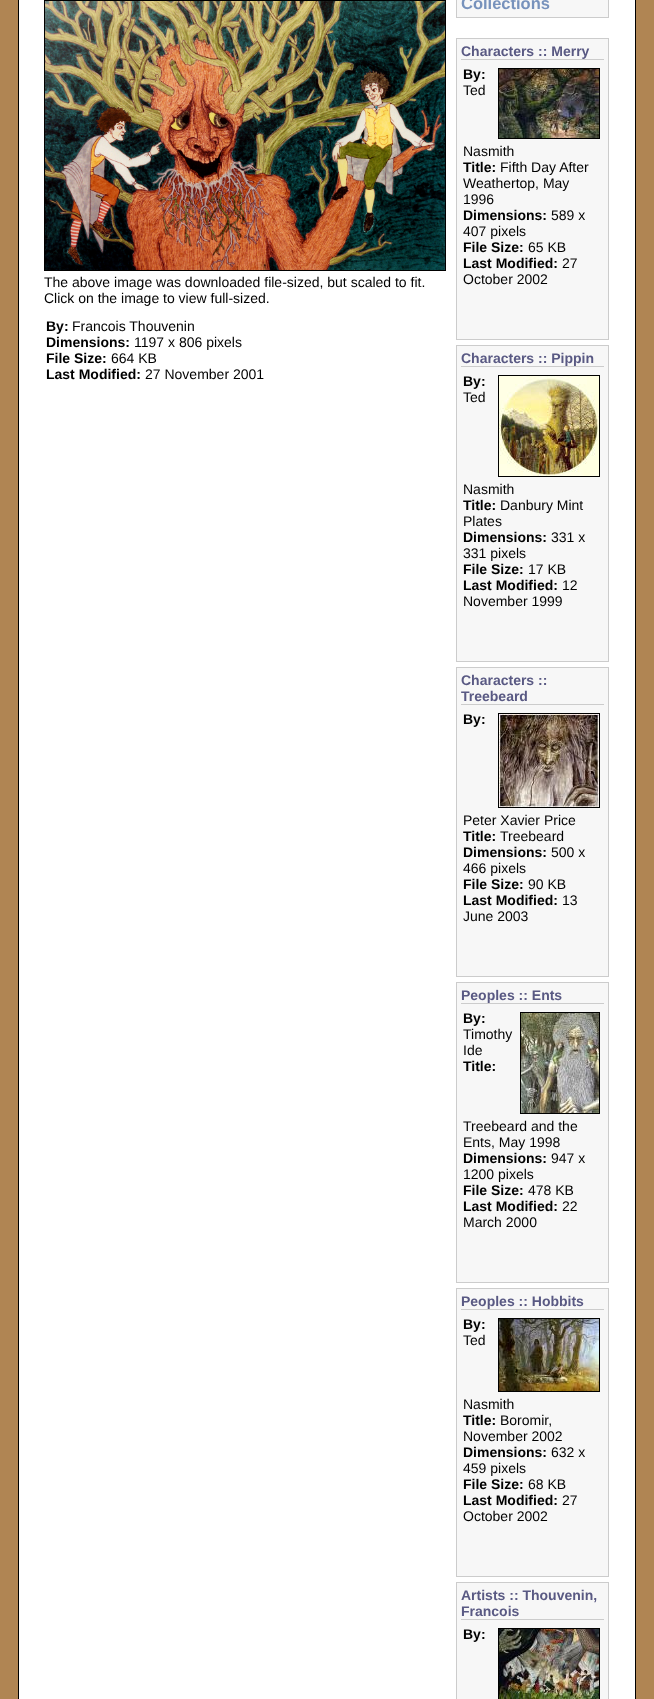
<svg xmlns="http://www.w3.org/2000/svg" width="654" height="1699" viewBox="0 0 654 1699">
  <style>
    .t1 { font: 14px Liberation Sans; fill: #000; }
    .t2 { font: bold 14px Liberation Sans; fill: #000; }
    .t3 { font: bold 16.5px Liberation Sans; fill: #7792bc; }
    .t4 { font: bold 14px Liberation Sans; fill: #595983; }
  </style>
  <rect width="100%" height="100%" fill="#b08553"/>
  <rect x="18.5" y="-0.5" width="617" height="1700" fill="#fff" stroke="#000"/>
  <rect x="44.5" y="0.5" width="401" height="270" fill="none" stroke="#000"/>
  <image x="45" y="1" width="400" height="269" href="images/1.png"/>
  <text x="44" y="287" class="t1">The above image was downloaded file-sized, but scaled to fit.</text>
  <text x="44" y="303" class="t1">Click on the image to view full-sized.</text>
  <text x="46" y="331" class="t2">By:</text>
  <text x="72" y="331" class="t1">Francois Thouvenin</text>
  <text x="46" y="347" class="t2">Dimensions:</text>
  <text x="134" y="347" class="t1">1197 x 806 pixels</text>
  <text x="46" y="363" class="t2">File Size:</text>
  <text x="111" y="363" class="t1">664 KB</text>
  <text x="46" y="379" class="t2">Last Modified:</text>
  <text x="145" y="379" class="t1">27 November 2001</text>
  <rect x="456.5" y="-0.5" width="152" height="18" fill="#f7f7f7" stroke="#ccc"/>
  <text x="461" y="9" class="t3">Collections</text>
  <rect x="456.5" y="38.5" width="152" height="301" fill="#f7f7f7" stroke="#ccc"/>
  <rect x="461" y="59" width="143" height="1" fill="#ccc"/>
  <text x="461" y="56" class="t4">Characters :: Merry</text>
  <rect x="498.5" y="68.5" width="101" height="70" fill="none" stroke="#000"/>
  <image x="499" y="69" width="100" height="69" href="images/2.png"/>
  <text x="463" y="79" class="t2">By:</text>
  <text x="463" y="95" class="t1">Ted</text>
  <text x="463" y="156" class="t1">Nasmith</text>
  <text x="463" y="172" class="t2">Title:</text>
  <text x="500" y="172" class="t1">Fifth Day After</text>
  <text x="463" y="188" class="t1">Weathertop, May</text>
  <text x="463" y="204" class="t1">1996</text>
  <text x="463" y="220" class="t2">Dimensions:</text>
  <text x="551" y="220" class="t1">589 x</text>
  <text x="463" y="236" class="t1">407 pixels</text>
  <text x="463" y="252" class="t2">File Size:</text>
  <text x="528" y="252" class="t1">65 KB</text>
  <text x="463" y="268" class="t2">Last Modified:</text>
  <text x="562" y="268" class="t1">27</text>
  <text x="463" y="284" class="t1">October 2002</text>
  <rect x="456.5" y="345.5" width="152" height="316" fill="#f7f7f7" stroke="#ccc"/>
  <rect x="461" y="366" width="143" height="1" fill="#ccc"/>
  <text x="461" y="363" class="t4">Characters :: Pippin</text>
  <rect x="498.5" y="375.5" width="101" height="101" fill="none" stroke="#000"/>
  <image x="499" y="376" width="100" height="100" href="images/3.png"/>
  <text x="463" y="386" class="t2">By:</text>
  <text x="463" y="402" class="t1">Ted</text>
  <text x="463" y="494" class="t1">Nasmith</text>
  <text x="463" y="510" class="t2">Title:</text>
  <text x="500" y="510" class="t1">Danbury Mint</text>
  <text x="463" y="526" class="t1">Plates</text>
  <text x="463" y="542" class="t2">Dimensions:</text>
  <text x="551" y="542" class="t1">331 x</text>
  <text x="463" y="558" class="t1">331 pixels</text>
  <text x="463" y="574" class="t2">File Size:</text>
  <text x="528" y="574" class="t1">17 KB</text>
  <text x="463" y="590" class="t2">Last Modified:</text>
  <text x="562" y="590" class="t1">12</text>
  <text x="463" y="606" class="t1">November 1999</text>
  <rect x="456.5" y="667.5" width="152" height="309" fill="#f7f7f7" stroke="#ccc"/>
  <rect x="461" y="704" width="143" height="1" fill="#ccc"/>
  <text x="461" y="685" class="t4">Characters ::</text>
  <text x="461" y="701" class="t4">Treebeard</text>
  <rect x="498.5" y="713.5" width="101" height="94" fill="none" stroke="#000"/>
  <image x="499" y="714" width="100" height="93" href="images/4.png"/>
  <text x="463" y="724" class="t2">By:</text>
  <text x="463" y="825" class="t1">Peter Xavier Price</text>
  <text x="463" y="841" class="t2">Title:</text>
  <text x="500" y="841" class="t1">Treebeard</text>
  <text x="463" y="857" class="t2">Dimensions:</text>
  <text x="551" y="857" class="t1">500 x</text>
  <text x="463" y="873" class="t1">466 pixels</text>
  <text x="463" y="889" class="t2">File Size:</text>
  <text x="528" y="889" class="t1">90 KB</text>
  <text x="463" y="905" class="t2">Last Modified:</text>
  <text x="562" y="905" class="t1">13</text>
  <text x="463" y="921" class="t1">June 2003</text>
  <rect x="456.5" y="982.5" width="152" height="300" fill="#f7f7f7" stroke="#ccc"/>
  <rect x="461" y="1003" width="143" height="1" fill="#ccc"/>
  <text x="461" y="1000" class="t4">Peoples :: Ents</text>
  <rect x="520.5" y="1012.5" width="79" height="101" fill="none" stroke="#000"/>
  <image x="521" y="1013" width="78" height="100" href="images/5.png"/>
  <text x="463" y="1023" class="t2">By:</text>
  <text x="463" y="1039" class="t1">Timothy</text>
  <text x="463" y="1055" class="t1">Ide</text>
  <text x="463" y="1071" class="t2">Title:</text>
  <text x="463" y="1131" class="t1">Treebeard and the</text>
  <text x="463" y="1147" class="t1">Ents, May 1998</text>
  <text x="463" y="1163" class="t2">Dimensions:</text>
  <text x="551" y="1163" class="t1">947 x</text>
  <text x="463" y="1179" class="t1">1200 pixels</text>
  <text x="463" y="1195" class="t2">File Size:</text>
  <text x="528" y="1195" class="t1">478 KB</text>
  <text x="463" y="1211" class="t2">Last Modified:</text>
  <text x="562" y="1211" class="t1">22</text>
  <text x="463" y="1227" class="t1">March 2000</text>
  <rect x="456.5" y="1288.5" width="152" height="288" fill="#f7f7f7" stroke="#ccc"/>
  <rect x="461" y="1309" width="143" height="1" fill="#ccc"/>
  <text x="461" y="1306" class="t4">Peoples :: Hobbits</text>
  <rect x="498.5" y="1318.5" width="101" height="73" fill="none" stroke="#000"/>
  <image x="499" y="1319" width="100" height="72" href="images/6.png"/>
  <text x="463" y="1329" class="t2">By:</text>
  <text x="463" y="1345" class="t1">Ted</text>
  <text x="463" y="1409" class="t1">Nasmith</text>
  <text x="463" y="1425" class="t2">Title:</text>
  <text x="500" y="1425" class="t1">Boromir,</text>
  <text x="463" y="1441" class="t1">November 2002</text>
  <text x="463" y="1457" class="t2">Dimensions:</text>
  <text x="551" y="1457" class="t1">632 x</text>
  <text x="463" y="1473" class="t1">459 pixels</text>
  <text x="463" y="1489" class="t2">File Size:</text>
  <text x="528" y="1489" class="t1">68 KB</text>
  <text x="463" y="1505" class="t2">Last Modified:</text>
  <text x="562" y="1505" class="t1">27</text>
  <text x="463" y="1521" class="t1">October 2002</text>
  <rect x="456.5" y="1582.5" width="152" height="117" fill="#f7f7f7" stroke="#ccc"/>
  <rect x="461" y="1619" width="143" height="1" fill="#ccc"/>
  <text x="461" y="1600" class="t4">Artists :: Thouvenin,</text>
  <text x="461" y="1616" class="t4">Francois</text>
  <text x="463" y="1639" class="t2">By:</text>
  <rect x="498.5" y="1628.5" width="101" height="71" fill="none" stroke="#000"/>
  <image x="499" y="1629" width="100" height="70" href="images/7.png"/>
</svg>
